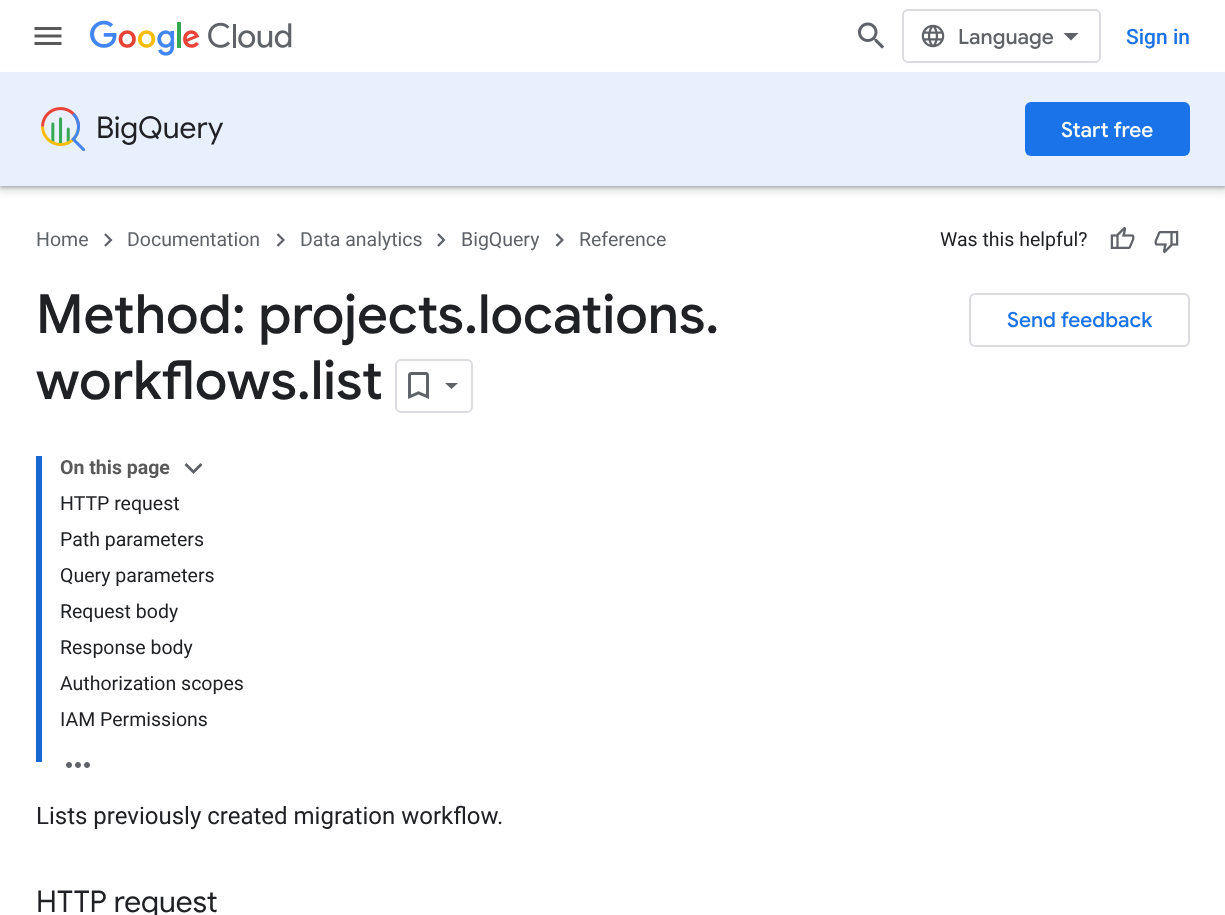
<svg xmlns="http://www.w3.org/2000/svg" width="1225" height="915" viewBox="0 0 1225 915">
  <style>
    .t1 { font: 500 21px Google Sans; fill: #5f6368; }
    .t2 { font: 500 21px Roboto; fill: #1a73e8; }
    .t3 { font: 30px Google Sans; fill: #202124; }
    .t4 { font: 500 21px Google Sans; fill: #fff; }
    .t5 { font: 19.5px Roboto; fill: #5f6368; }
    .t6 { font: 19.5px Roboto; fill: #202124; }
    .t7 { font: 500 54px Google Sans; fill: #202124; }
    .t8 { font: 500 21px Google Sans; fill: #1a73e8; }
    .t9 { font: bold 19.5px Roboto; fill: #595959; }
    .t10 { font: 24px Roboto; fill: #202124; }
  </style>
  <rect width="100%" height="100%" fill="#fff"/>
  <rect x="-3" y="72" width="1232" height="120" fill="#3c404326" filter="blur(4.5px)"/>
  <rect x="0" y="74" width="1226" height="114" fill="#3c40434d" filter="blur(1.5px)"/>
  <rect x="0" y="66" width="1225" height="6" fill="#fff"/>
  <image x="34" y="27" width="28" height="18" href="images/1.png"/>
  <image x="90" y="20" width="202" height="36" href="images/2.png"/>
  <image x="858" y="22" width="27" height="27" href="images/3.png"/>
  <rect x="903" y="10" width="197" height="52" rx="5" fill="none" stroke="#dadce0" stroke-width="2"/>
  <image x="921" y="24" width="24" height="24" href="images/4.png"/>
  <text x="958" y="44" class="t1">Language</text>
  <path d="M1071 40.5L1063.5 33H1078.5Z" fill="#5f6368"/>
  <text x="1126" y="44" class="t2">Sign in</text>
  <rect x="0" y="72" width="1225" height="114" fill="#e8f0fe"/>
  <image x="41" y="107" width="45" height="45" href="images/5.png"/>
  <text x="96" y="138" class="t3">BigQuery</text>
  <rect x="1025" y="102" width="165" height="54" rx="6" fill="#1a73e8"/>
  <text x="1061" y="137" class="t4">Start free</text>
  <text x="36" y="246" class="t5">Home</text>
  <image x="104" y="233" width="9" height="14" href="images/6.png"/>
  <text x="127" y="246" class="t5">Documentation</text>
  <image x="276" y="233" width="9" height="14" href="images/7.png"/>
  <text x="300" y="246" class="t5">Data analytics</text>
  <image x="437" y="233" width="9" height="14" href="images/6.png"/>
  <text x="461" y="246" class="t5">BigQuery</text>
  <image x="555" y="233" width="9" height="14" href="images/7.png"/>
  <text x="579" y="246" class="t5">Reference</text>
  <text x="940" y="246" class="t6">Was this helpful?</text>
  <image x="1110" y="227" width="25" height="22" href="images/8.png"/>
  <image x="1154" y="231" width="25" height="23" href="images/9.png"/>
  <text x="36" y="333" class="t7">Method: projects.locations.</text>
  <text x="36" y="399" class="t7">workflows.list</text>
  <rect x="396" y="360" width="76" height="52" rx="5" fill="none" stroke="#dadce0" stroke-width="2"/>
  <image x="408" y="372" width="21" height="27" href="images/10.png"/>
  <path d="M445 383H458L451.5 389Z" fill="#5f6368"/>
  <rect x="970" y="294" width="219" height="52" rx="5" fill="none" stroke="#dadce0" stroke-width="2"/>
  <text x="1007" y="327" class="t8">Send feedback</text>
  <rect x="36" y="456" width="6" height="306" fill="#1967d2"/>
  <text x="60" y="474" class="t9">On this page</text>
  <path d="M200.5 463L202.5 465L193.5 474L184.5 465L186.5 463L193.5 470Z" fill="#5f6368"/>
  <text x="60" y="510" class="t6">HTTP request</text>
  <text x="60" y="546" class="t6">Path parameters</text>
  <text x="60" y="582" class="t6">Query parameters</text>
  <text x="60" y="618" class="t6">Request body</text>
  <text x="60" y="654" class="t6">Response body</text>
  <text x="60" y="690" class="t6">Authorization scopes</text>
  <text x="60" y="726" class="t6">IAM Permissions</text>
  <image x="66" y="762" width="24" height="6" href="images/11.png"/>
  <text x="36" y="824" class="t10">Lists previously created migration workflow.</text>
  <text x="36" y="912" class="t3">HTTP request</text>
</svg>
